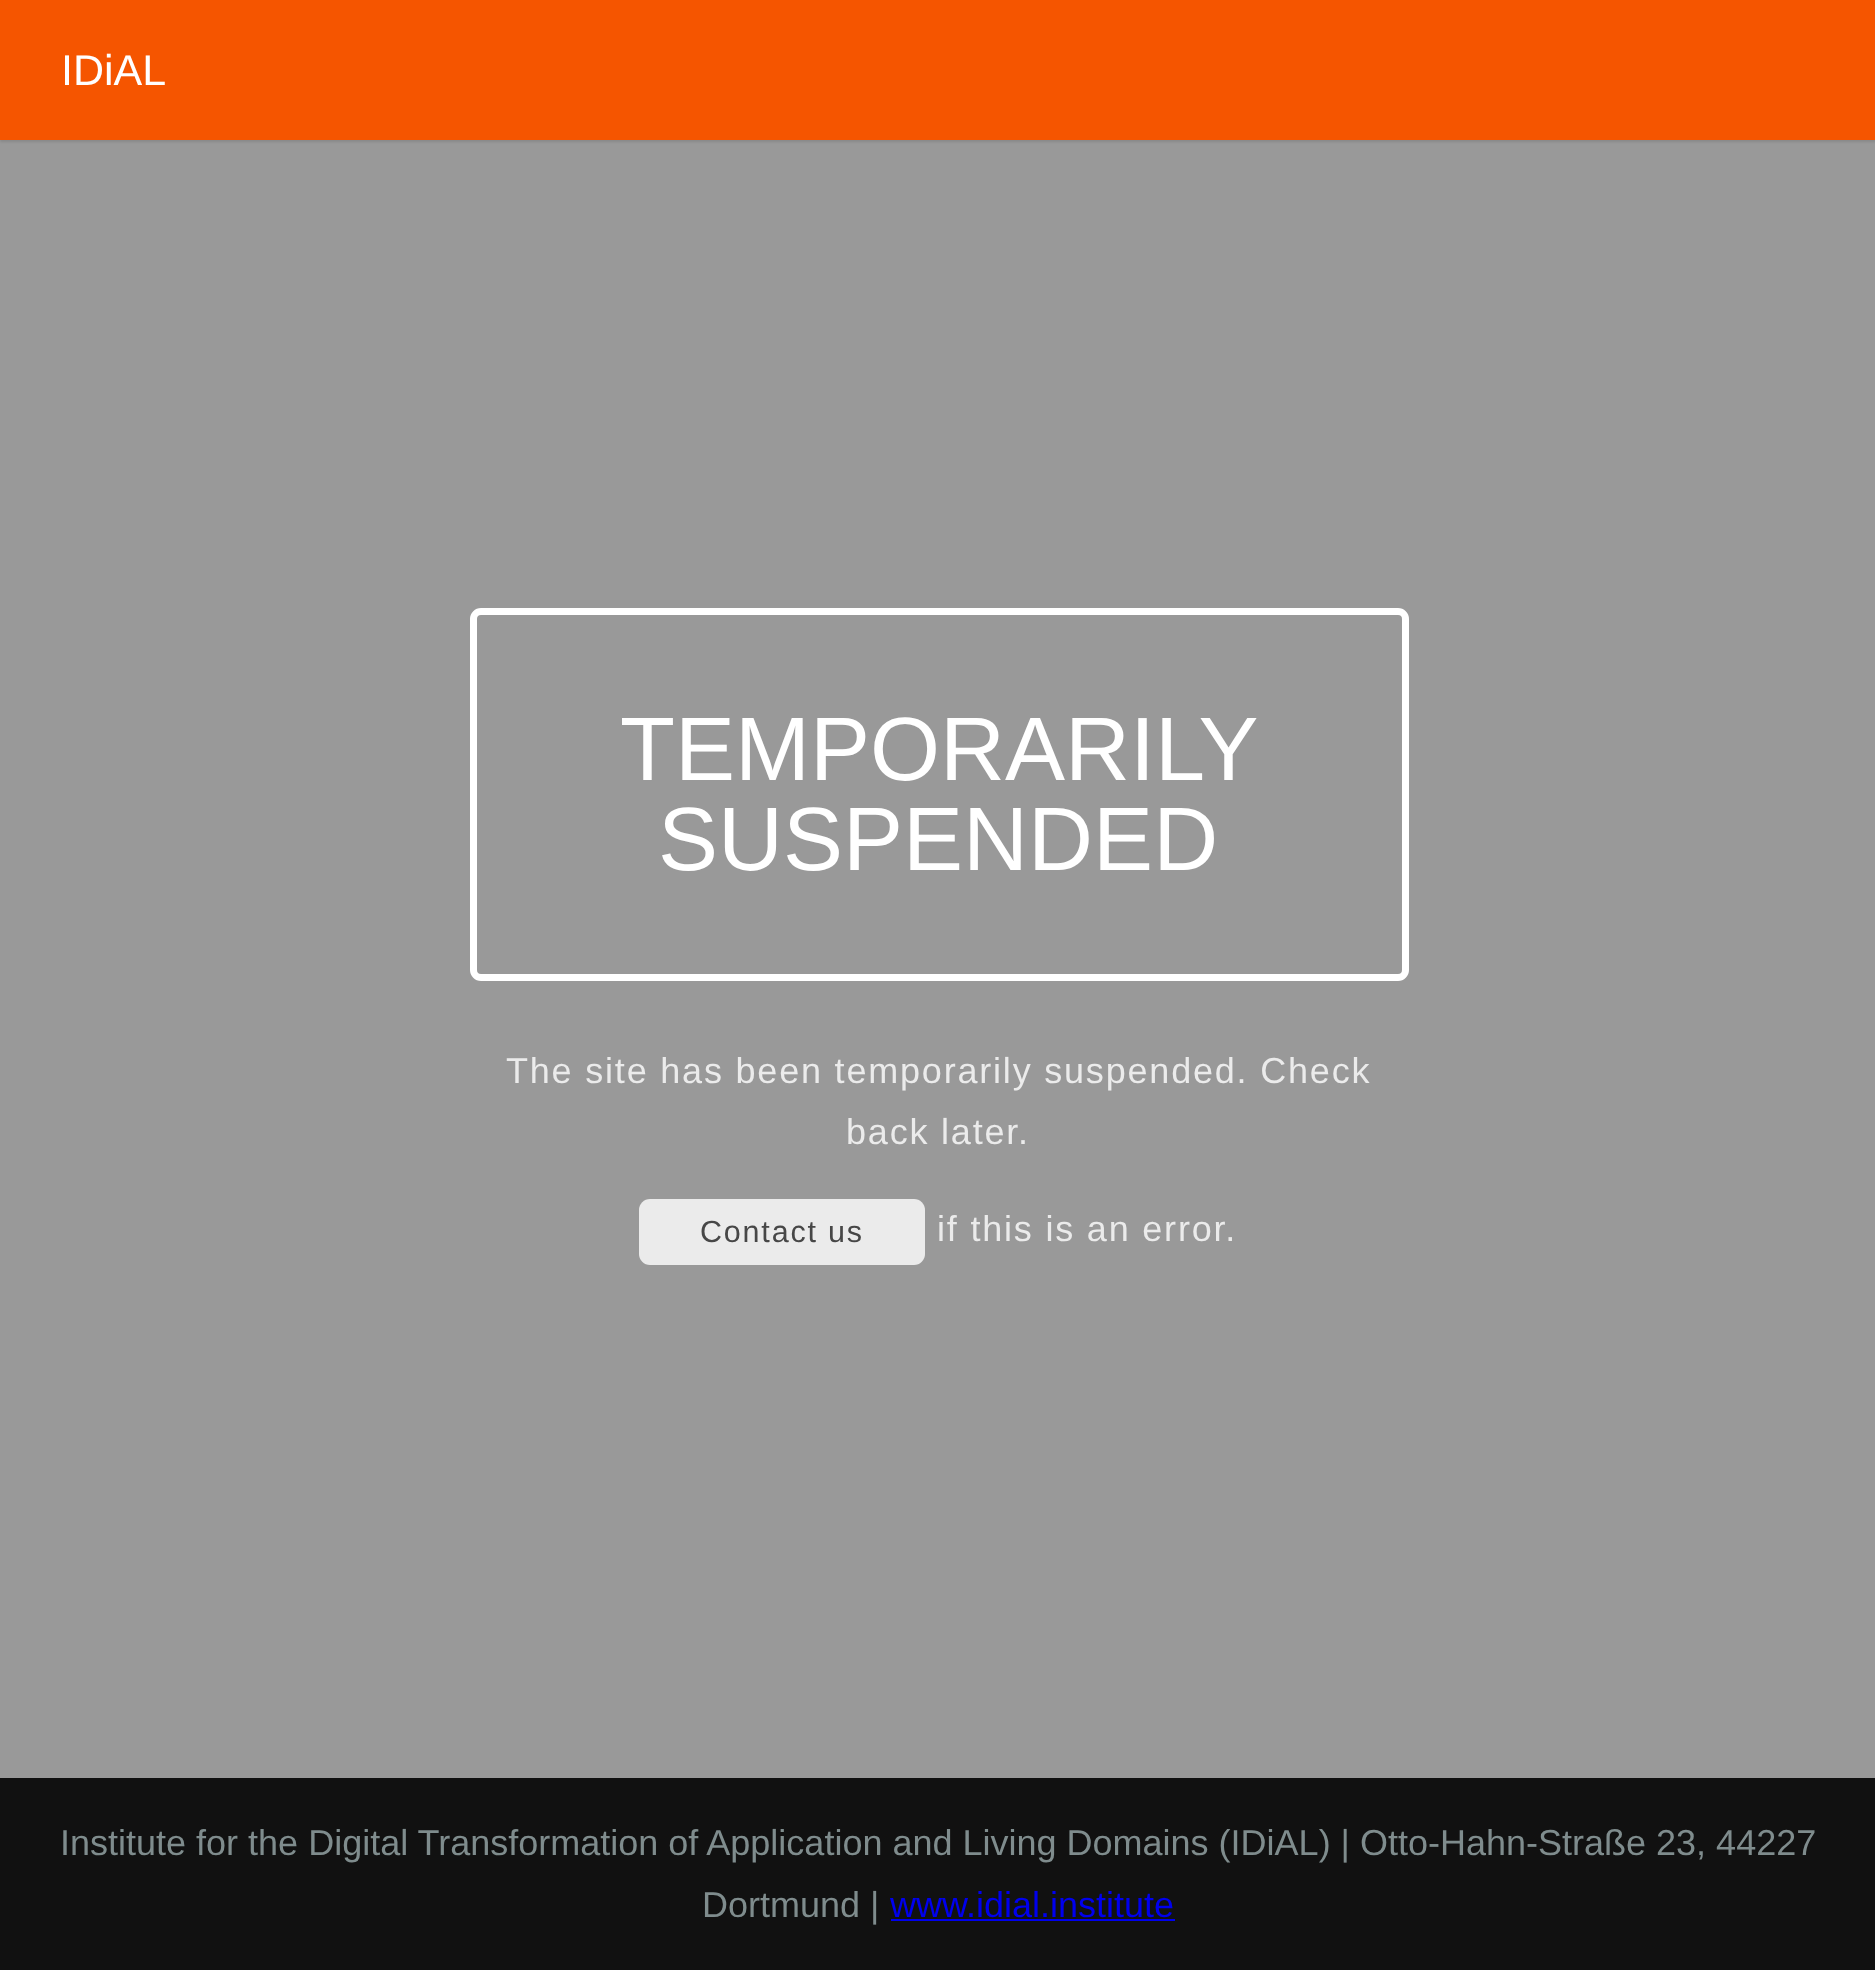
<svg xmlns="http://www.w3.org/2000/svg" width="1875" height="1970" viewBox="0 0 1875 1970">
  <style>
    .t1 { font: 43px Liberation Sans; fill: #fff; }
    .t2 { font: 90px Liberation Sans; fill: #fff; }
    .t3 { font: 36px Liberation Sans; letter-spacing: 1.8px; fill: #ebebeb; }
    .t4 { font: 30.5px Liberation Sans; letter-spacing: 1.8px; fill: #474747; }
    .t5 { font: 36px Liberation Sans; fill: #7f8c8d; }
    .t6 { font: 36px Liberation Sans; fill: #00e; }
  </style>
  <rect width="100%" height="100%" fill="#999"/>
  <rect x="0" y="2" width="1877" height="140" fill="#0000001a" filter="blur(1px)"/>
  <rect x="0" y="0" width="1875" height="140" fill="#f55500"/>
  <text x="61" y="85" class="t1">IDiAL</text>
  <rect x="473.5" y="611.5" width="932" height="366" rx="7.5" fill="none" stroke="#fff" stroke-width="7"/>
  <text x="620" y="780" class="t2">TEMPORARILY</text>
  <text x="658" y="870" class="t2">SUSPENDED</text>
  <text x="506" y="1083" class="t3">The site has been temporarily suspended. Check</text>
  <text x="846" y="1144" class="t3">back later.</text>
  <rect x="639" y="1199" width="286" height="66" rx="11" fill="#ebebeb"/>
  <text x="700" y="1242" class="t4">Contact us</text>
  <text x="937" y="1241" class="t3">if this is an error.</text>
  <rect x="0" y="1778" width="1875" height="192" fill="#111"/>
  <text x="60" y="1855" class="t5">Institute for the Digital Transformation of Application and Living Domains (IDiAL) | Otto-Hahn-Straße 23, 44227</text>
  <text x="702" y="1917" class="t5">Dortmund |</text>
  <text x="890" y="1917" class="t6">www.idial.institute</text>
  <rect x="891" y="1919" width="284" height="2" fill="#00e"/>
</svg>
